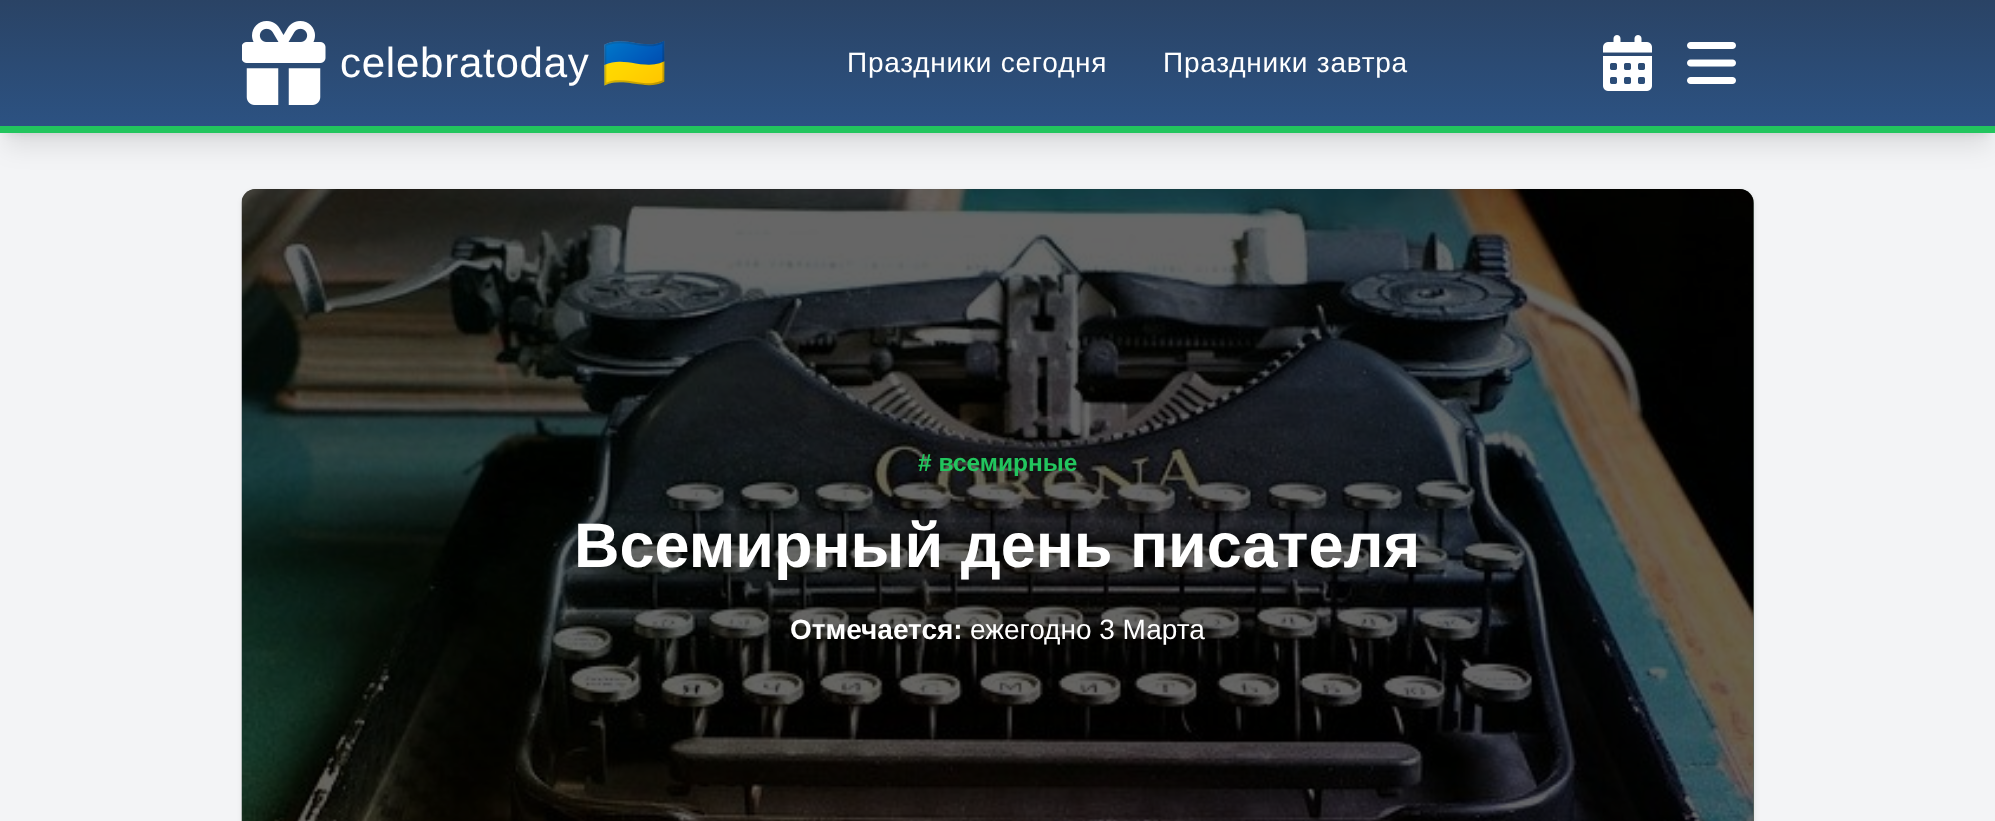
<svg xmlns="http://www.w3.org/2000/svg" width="1995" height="821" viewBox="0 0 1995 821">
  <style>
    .t1 { font: 42px Liberation Sans; letter-spacing: 0.75px; fill: #fff; }
    .t2 { font: 52px Noto Color Emoji; letter-spacing: 0.75px; fill: #fff; }
    .t3 { font: 28px Liberation Sans; letter-spacing: 0.75px; fill: #fff; }
    .t4 { font: bold 24.5px Liberation Sans; fill: #22c55e; }
    .t5 { font: bold 63px Liberation Sans; fill: #fff; }
    .t6 { font: bold 28px Liberation Sans; fill: #fff; }
    .t7 { font: 28px Liberation Sans; fill: #fff; }
  </style>
  <defs>
    <linearGradient id="g1" gradientUnits="userSpaceOnUse" x1="998" y1="0" x2="998" y2="126"><stop offset="0" stop-color="#2a4365"/><stop offset="1" stop-color="#2c5282"/></linearGradient>
  </defs>
  <rect width="100%" height="100%" fill="#f3f4f6"/>
  <rect x="7" y="14" width="1981" height="119" fill="#0000001a" filter="blur(5px)"/>
  <rect x="5" y="23" width="1985" height="122" fill="#0000001a" filter="blur(13px)"/>
  <rect x="0" y="0" width="1995" height="126" fill="url(#g1)"/>
  <rect x="0" y="126" width="1995" height="7" fill="#22c55e"/>
  <image x="242" y="21" width="84" height="84" href="images/1.png"/>
  <text x="340" y="77" class="t1">celebratoday</text>
  <text x="602" y="81" class="t2">🇺🇦</text>
  <text x="847" y="72" class="t3">Праздники сегодня</text>
  <text x="1163" y="72" class="t3">Праздники завтра</text>
  <image x="1603" y="35" width="49" height="56" href="images/2.png"/>
  <image x="1687" y="42" width="49" height="42" href="images/3.png"/>
  <rect x="242" y="191" width="1512" height="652" rx="14" fill="#0000001a" filter="blur(2.5px)"/>
  <path d="M256 189H1740C1747.5 189 1754 195.5 1754 203V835H242V203C242 195.5 248.5 189 256 189Z" fill="#58655c"/>
  <image x="241" y="189" width="1513" height="632" href="images/4.png"/>
  <text x="918" y="471" class="t4"># всемирные</text>
  <text x="574" y="567" class="t5">Всемирный день писателя</text>
  <text x="790" y="639" class="t6">Отмечается:</text>
  <text x="970" y="639" class="t7">ежегодно 3 Марта</text>
</svg>
